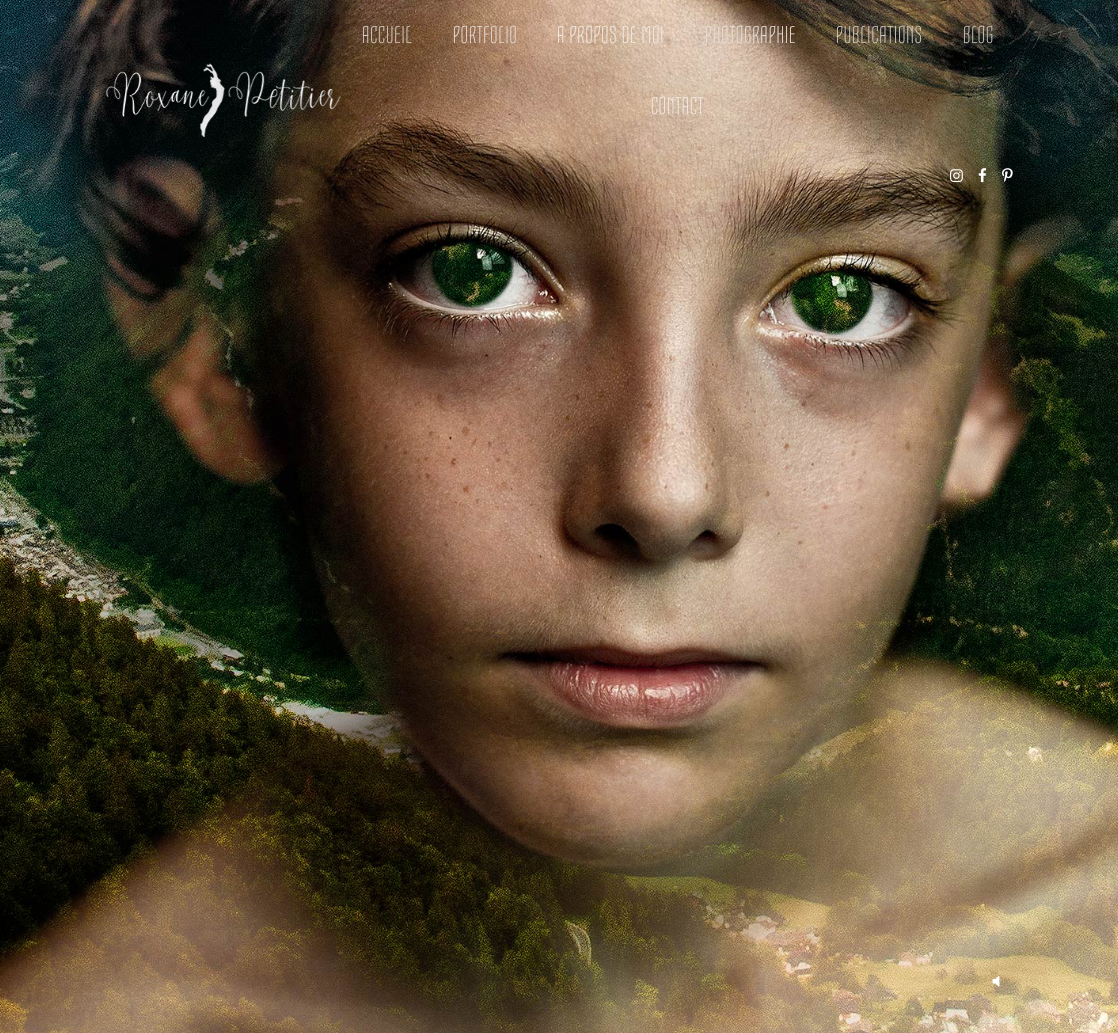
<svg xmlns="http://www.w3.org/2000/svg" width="1118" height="1033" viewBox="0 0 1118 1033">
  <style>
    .t1 { font: 25px Tulpen One; letter-spacing: 1px; fill: #d2c9c1; }
    .t2 { font: 25px Tulpen One; letter-spacing: 1px; fill: #e3d7cf; }
    .t3 { font: 25px Tulpen One; letter-spacing: 1px; fill: #f1e8e1; }
    .t4 { font: 25px Tulpen One; letter-spacing: 1px; fill: #e4ddd6; }
    .t5 { font: 25px Tulpen One; letter-spacing: 1px; fill: #cac7c1; }
    .t6 { font: 25px Tulpen One; letter-spacing: 1px; fill: #c2c1be; }
  </style>
  <rect width="100%" height="100%" fill="#fff"/>
  <image x="0" y="0" width="1118" height="1033" href="images/1.png"/>
  <image x="992" y="975" width="8" height="12" href="images/2.png"/>
  <image x="106" y="63" width="235" height="74" href="images/3.png"/>
  <text x="362" y="43" class="t1">ACCUEIL</text>
  <text x="453" y="43" class="t2">PORTFOLIO</text>
  <text x="557" y="43" class="t3">A PROPOS DE MOI</text>
  <text x="705" y="43" class="t4">PHOTOGRAPHIE</text>
  <text x="836" y="43" class="t5">PUBLICATIONS</text>
  <text x="963" y="43" class="t6">BLOG</text>
  <text x="651" y="114" class="t3">CONTACT</text>
  <image x="950" y="169" width="13" height="14" href="images/4.png"/>
  <image x="978" y="168" width="9" height="15" href="images/5.png"/>
  <image x="1002" y="168" width="11" height="14" href="images/6.png"/>
</svg>
